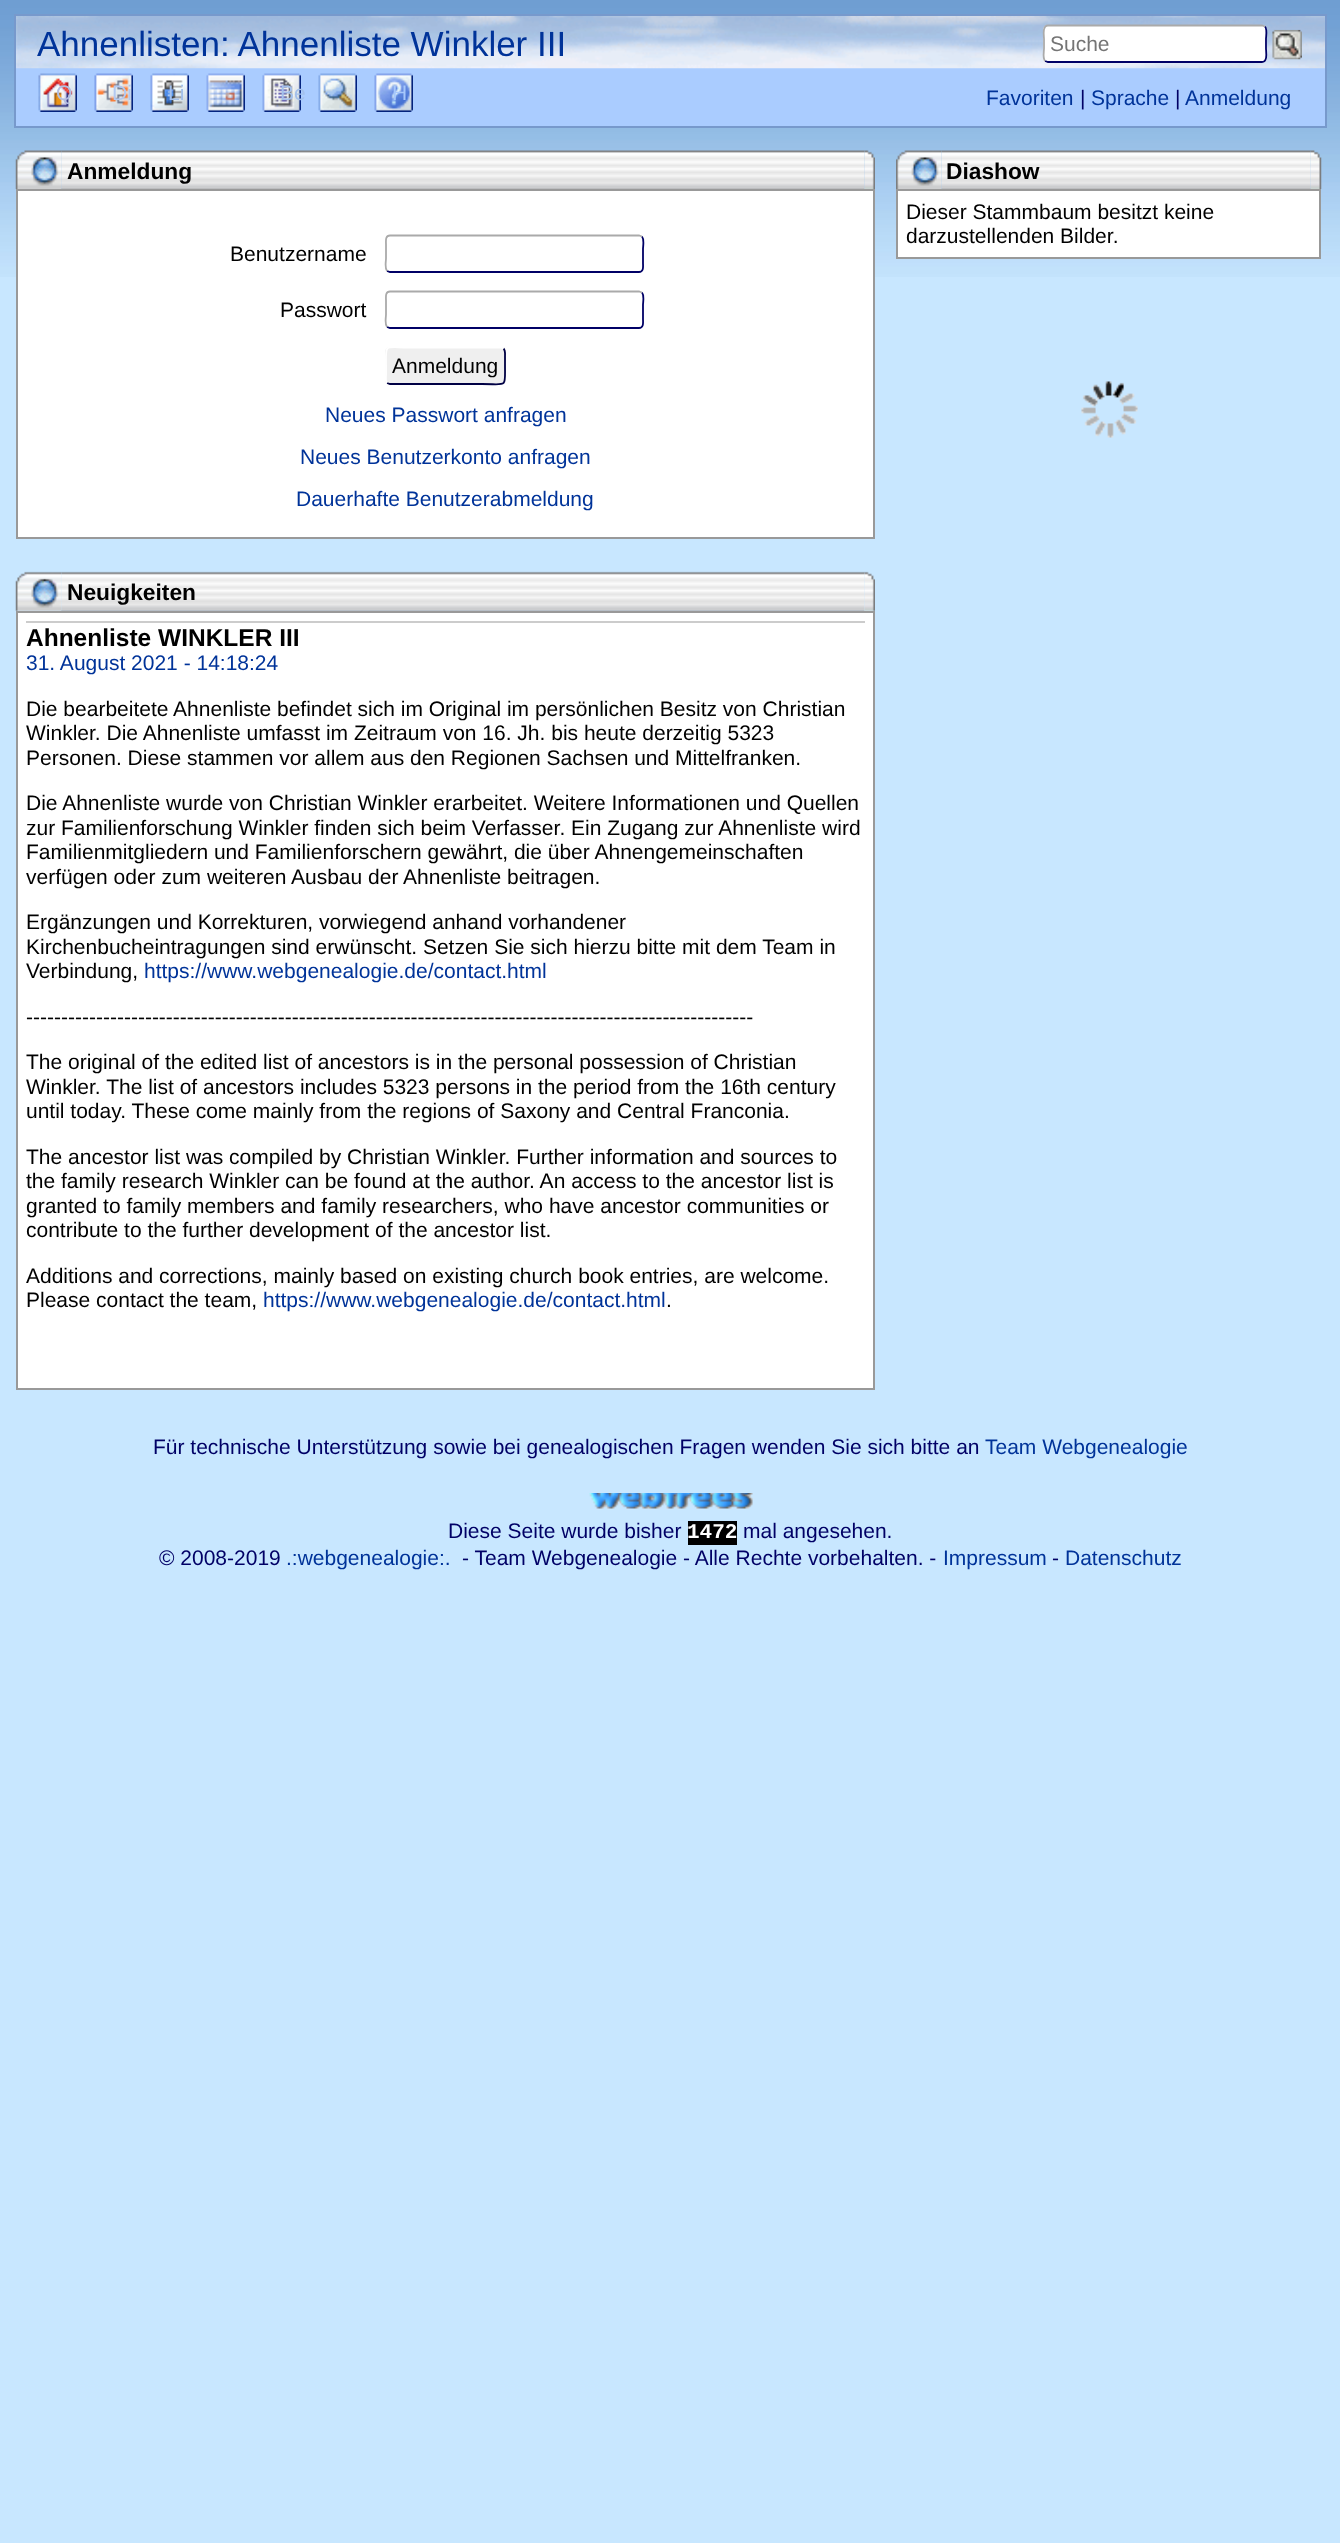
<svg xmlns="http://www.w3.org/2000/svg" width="1340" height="2543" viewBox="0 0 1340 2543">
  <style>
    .t1 { font: 35px Liberation Sans; fill: #039; }
    .t2 { font: 21px Liberation Sans; fill: #757575; }
    .t3 { font: 21px Liberation Sans; fill: #b3bee1; }
    .t4 { font: 21px Liberation Sans; fill: #b2c9f1; }
    .t5 { font: 21px Liberation Sans; fill: #a3c0eb; }
    .t6 { font: 21px Liberation Sans; fill: #a6c7fb; }
    .t7 { font: 21px Liberation Sans; fill: #039; }
    .t8 { font: 21px Liberation Sans; fill: #006; }
    .t9 { font: bold 22.75px Liberation Sans; fill: #000; }
    .t10 { font: 21px Liberation Sans; fill: #000; }
    .t11 { font: bold 24.5px Liberation Sans; fill: #000; }
    .t12 { font: bold 21px Liberation Mono; fill: #fff; }
  </style>
  <rect width="100%" height="100%" fill="#c8e7ff"/>
  <image x="0" y="0" width="1340" height="277" href="images/1.png"/>
  <rect x="16" y="68" width="1309" height="58" fill="#acf"/>
  <image x="16" y="16" width="1309" height="53" href="images/2.png"/>
  <rect x="15" y="15" width="1311" height="112" fill="none" stroke="#79c" stroke-width="2"/>
  <text x="37" y="56" class="t1">Ahnenlisten: Ahnenliste Winkler III</text>
  <rect x="1043" y="25" width="224" height="38" rx="5" fill="#fff"/>
  <path d="M1265 26.5C1267.5 29.5 1266 36 1266 39V48.5C1266 51.5 1268 62 1262 62H1048L1045 61" fill="none" stroke="#006" stroke-width="1.8"/>
  <path d="M1045 61C1042.5 58 1044 51.5 1044 48.5V39C1044 36 1042 25.5 1048 25.5H1262L1265 26.5" fill="none" stroke="#aaa" stroke-width="1.8"/>
  <text x="1050" y="51" class="t2">Suche</text>
  <image x="1272" y="29" width="30" height="31" href="images/3.png"/>
  <image x="38" y="73" width="39" height="39" href="images/4.png"/>
  <text x="56" y="100" class="t3">Q</text>
  <image x="94" y="73" width="39" height="39" href="images/5.png"/>
  <text x="112" y="100" class="t4">Di</text>
  <image x="150" y="73" width="39" height="39" href="images/6.png"/>
  <text x="168" y="100" class="t5">Li</text>
  <image x="206" y="73" width="39" height="39" href="images/7.png"/>
  <image x="262" y="73" width="39" height="39" href="images/8.png"/>
  <text x="280" y="100" class="t5">Be</text>
  <image x="318" y="73" width="39" height="39" href="images/9.png"/>
  <image x="374" y="73" width="39" height="39" href="images/10.png"/>
  <text x="392" y="100" class="t6">H</text>
  <text x="986" y="105" class="t7">Favoriten</text>
  <text x="1080" y="105" class="t8">|</text>
  <text x="1091" y="105" class="t7">Sprache</text>
  <text x="1175" y="105" class="t8">|</text>
  <text x="1185" y="105" class="t7">Anmeldung</text>
  <image x="15" y="150" width="47" height="39" href="images/11.png"/>
  <image x="61" y="150" width="804" height="39" href="images/12.png"/>
  <text x="67" y="179" class="t9">Anmeldung</text>
  <image x="864" y="150" width="11" height="39" href="images/13.png"/>
  <rect x="17" y="190" width="857" height="348" fill="#fff" stroke="#999" stroke-width="2"/>
  <text x="230" y="261" class="t10">Benutzername</text>
  <path d="M642 236.5C644.5 239.5 643 246 643 249V263C643 266.5 644 272 639 272H390L387 271" fill="none" stroke="#006" stroke-width="1.8"/>
  <path d="M387 271C384.5 268 386 261.5 386 258.5V244.5C386 241 385 235.5 390 235.5H639L642 236.5" fill="none" stroke="#aaa" stroke-width="1.8"/>
  <text x="280" y="317" class="t10">Passwort</text>
  <path d="M642 292.5C644.5 295.5 643 302 643 305V319C643 322.5 644 328 639 328H390L387 327" fill="none" stroke="#006" stroke-width="1.8"/>
  <path d="M387 327C384.5 324 386 317.5 386 314.5V300.5C386 297 385 291.5 390 291.5H639L642 292.5" fill="none" stroke="#aaa" stroke-width="1.8"/>
  <rect x="385" y="347" width="121" height="38" rx="5" fill="#efefef"/>
  <path d="M503.5 348.5C505.5 350.5 505 354 505 356.5V366C505 388.5 507.5 384 482 384H390L387 383" fill="none" stroke="#004" stroke-width="1.8"/>
  <path d="M387 383C385 381 386 377.5 386 375V366C386 343 383.5 347.5 408.5 347.5H500.5L503.5 348.5" fill="none" stroke="#fff" stroke-width="1.8"/>
  <text x="392" y="373" class="t10">Anmeldung</text>
  <text x="325" y="422" class="t7">Neues Passwort anfragen</text>
  <text x="300" y="464" class="t7">Neues Benutzerkonto anfragen</text>
  <text x="296" y="506" class="t7">Dauerhafte Benutzerabmeldung</text>
  <image x="15" y="571" width="47" height="40" href="images/14.png"/>
  <image x="61" y="571" width="804" height="40" href="images/15.png"/>
  <text x="67" y="600" class="t9">Neuigkeiten</text>
  <image x="864" y="571" width="11" height="40" href="images/16.png"/>
  <rect x="17" y="612" width="857" height="777" fill="#fff" stroke="#999" stroke-width="2"/>
  <rect x="26" y="621" width="839" height="2" fill="#ccc"/>
  <text x="26" y="646" class="t11">Ahnenliste WINKLER III</text>
  <text x="26" y="670" class="t7">31. August 2021 - 14:18:24</text>
  <text x="26" y="716" class="t10">Die bearbeitete Ahnenliste befindet sich im Original im persönlichen Besitz von Christian</text>
  <text x="26" y="740" class="t10">Winkler. Die Ahnenliste umfasst im Zeitraum von 16. Jh. bis heute derzeitig 5323</text>
  <text x="26" y="765" class="t10">Personen. Diese stammen vor allem aus den Regionen Sachsen und Mittelfranken.</text>
  <text x="26" y="810" class="t10">Die Ahnenliste wurde von Christian Winkler erarbeitet. Weitere Informationen und Quellen</text>
  <text x="26" y="835" class="t10">zur Familienforschung Winkler finden sich beim Verfasser. Ein Zugang zur Ahnenliste wird</text>
  <text x="26" y="859" class="t10">Familienmitgliedern und Familienforschern gewährt, die über Ahnengemeinschaften</text>
  <text x="26" y="884" class="t10">verfügen oder zum weiteren Ausbau der Ahnenliste beitragen.</text>
  <text x="26" y="929" class="t10">Ergänzungen und Korrekturen, vorwiegend anhand vorhandener</text>
  <text x="26" y="954" class="t10">Kirchenbucheintragungen sind erwünscht. Setzen Sie sich hierzu bitte mit dem Team in</text>
  <text x="26" y="978" class="t10">Verbindung,</text>
  <text x="144" y="978" class="t7">https://www.webgenealogie.de/contact.html</text>
  <text x="26" y="1024" class="t10">--------------------------------------------------------------------------------------------------------</text>
  <text x="26" y="1069" class="t10">The original of the edited list of ancestors is in the personal possession of Christian</text>
  <text x="26" y="1094" class="t10">Winkler. The list of ancestors includes 5323 persons in the period from the 16th century</text>
  <text x="26" y="1118" class="t10">until today. These come mainly from the regions of Saxony and Central Franconia.</text>
  <text x="26" y="1164" class="t10">The ancestor list was compiled by Christian Winkler. Further information and sources to</text>
  <text x="26" y="1188" class="t10">the family research Winkler can be found at the author. An access to the ancestor list is</text>
  <text x="26" y="1213" class="t10">granted to family members and family researchers, who have ancestor communities or</text>
  <text x="26" y="1237" class="t10">contribute to the further development of the ancestor list.</text>
  <text x="26" y="1283" class="t10">Additions and corrections, mainly based on existing church book entries, are welcome.</text>
  <text x="26" y="1307" class="t10">Please contact the team,</text>
  <text x="263" y="1307" class="t7">https://www.webgenealogie.de/contact.html</text>
  <text x="666" y="1307" class="t10">.</text>
  <image x="896" y="150" width="46" height="39" href="images/17.png"/>
  <image x="941" y="150" width="370" height="39" href="images/18.png"/>
  <text x="946" y="179" class="t9">Diashow</text>
  <image x="1310" y="150" width="12" height="39" href="images/19.png"/>
  <rect x="897" y="190" width="423" height="68" fill="#fff" stroke="#999" stroke-width="2"/>
  <text x="906" y="219" class="t10">Dieser Stammbaum besitzt keine</text>
  <text x="906" y="243" class="t10">darzustellenden Bilder.</text>
  <image x="1081" y="381" width="57" height="57" href="images/20.png"/>
  <text x="153" y="1454" class="t8">Für technische Unterstützung sowie bei genealogischen Fragen wenden Sie sich bitte an</text>
  <text x="985" y="1454" class="t7">Team Webgenealogie</text>
  <image x="589" y="1493" width="164" height="16" href="images/21.png"/>
  <text x="448" y="1538" class="t8">Diese Seite wurde bisher</text>
  <rect x="688" y="1521" width="49" height="24" fill="#000"/>
  <text x="687" y="1538" class="t12">1472</text>
  <text x="743" y="1538" class="t8">mal angesehen.</text>
  <text x="159" y="1565" class="t8">© 2008-2019</text>
  <text x="286" y="1565" class="t7">.:webgenealogie:.</text>
  <text x="462" y="1565" class="t8">- Team Webgenealogie - Alle Rechte vorbehalten. -</text>
  <text x="943" y="1565" class="t7">Impressum</text>
  <text x="1052" y="1565" class="t8">-</text>
  <text x="1065" y="1565" class="t7">Datenschutz</text>
</svg>
